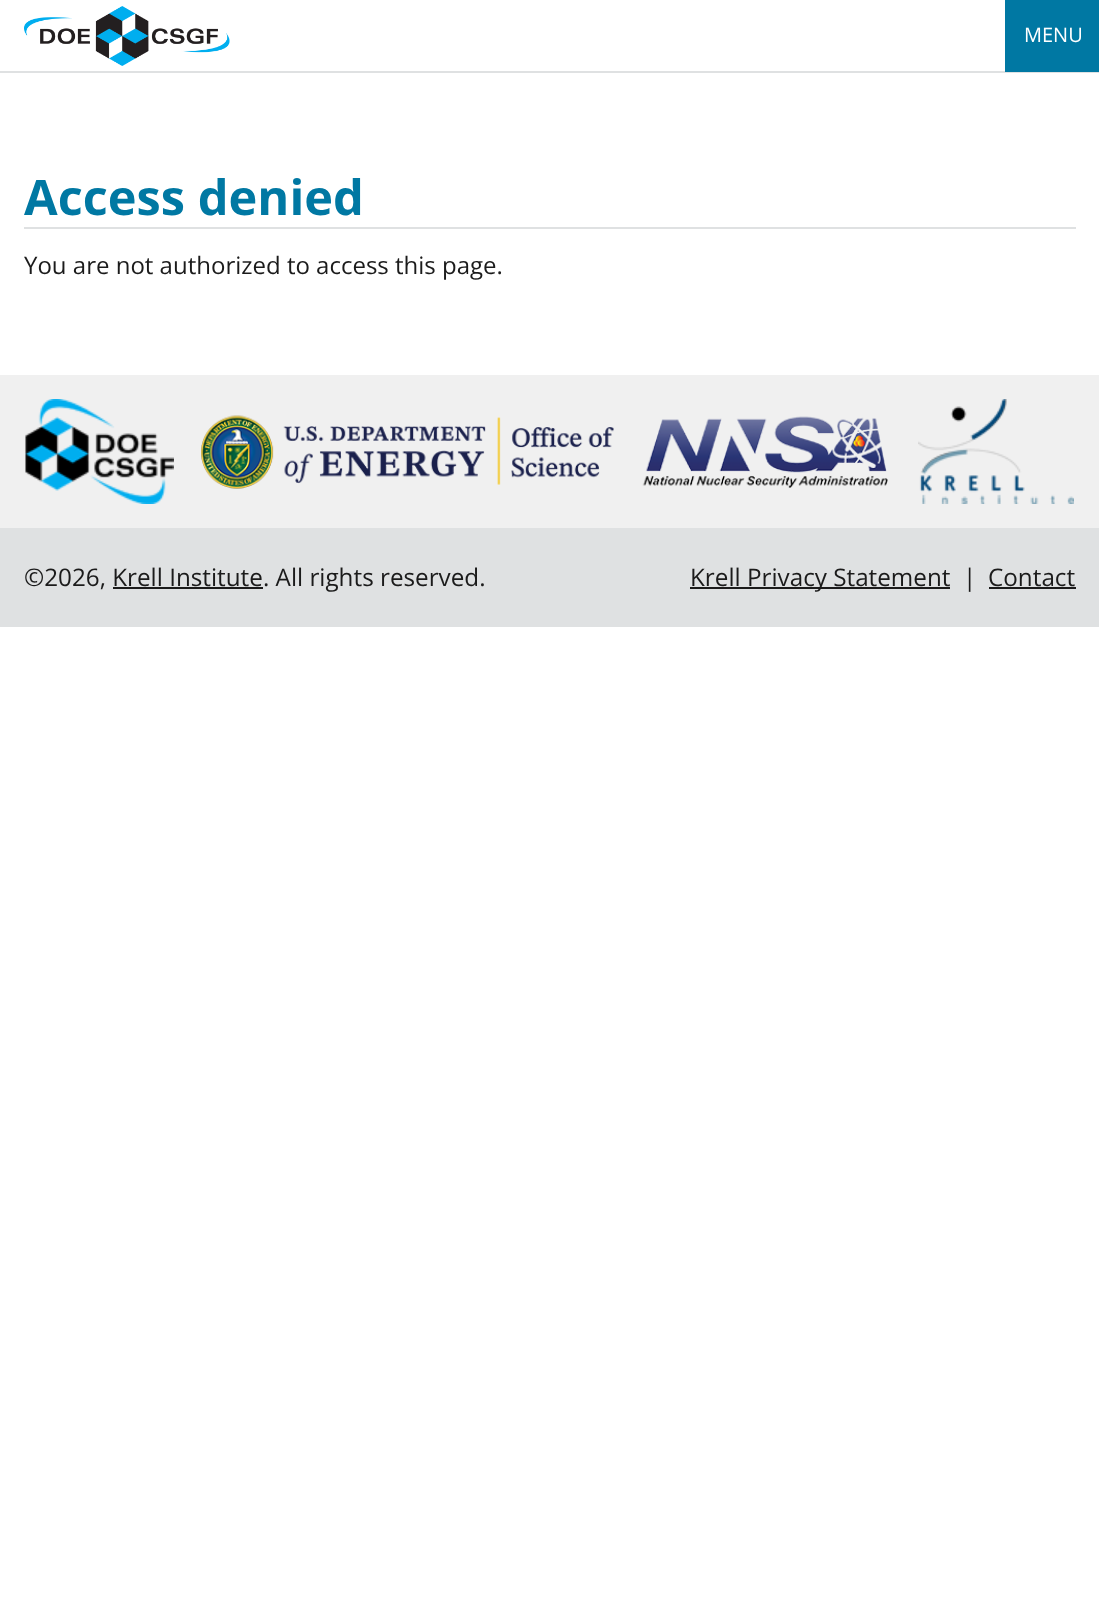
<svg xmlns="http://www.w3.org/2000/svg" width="1099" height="1603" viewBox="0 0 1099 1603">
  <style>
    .t1 { font: 20px Open Sans; fill: #fff; }
    .t2 { font: bold 48.75px Open Sans; fill: #0078a3; }
    .t3 { font: 24px Open Sans; fill: #1b1b1b; }
    .t4 { font: 24.25px Open Sans; fill: #1b1b1b; }
  </style>
  <rect width="100%" height="100%" fill="#fff"/>
  <rect x="0" y="71" width="1099" height="2" fill="#dfe1e2"/>
  <image x="24" y="6" width="206" height="60" href="images/1.png"/>
  <rect x="1005" y="0" width="94" height="72" fill="#0078a3"/>
  <text x="1024" y="42" class="t1">MENU</text>
  <rect x="24" y="227" width="1052" height="2" fill="#dfe1e2"/>
  <text x="24" y="215" class="t2">Access denied</text>
  <text x="24" y="274" class="t3">You are not authorized to access this page.</text>
  <rect x="0" y="375" width="1099" height="153" fill="#f0f0f0"/>
  <image x="25" y="399" width="149" height="105" href="images/2.png"/>
  <image x="201" y="415" width="413" height="74" href="images/3.png"/>
  <image x="642" y="416" width="246" height="72" href="images/4.png"/>
  <image x="918" y="399" width="156" height="105" href="images/5.png"/>
  <rect x="0" y="528" width="1099" height="99" fill="#dfe1e2"/>
  <text x="24" y="586" class="t4">©2026, Krell Institute. All rights reserved.</text>
  <rect x="113" y="587" width="150" height="2" fill="#1b1b1b"/>
  <rect x="690" y="587" width="260" height="2" fill="#1b1b1b"/>
  <text x="690" y="586" class="t4">Krell Privacy Statement</text>
  <text x="963" y="586" class="t4">|</text>
  <text x="988" y="586" class="t4">Contact</text>
  <rect x="989" y="587" width="87" height="2" fill="#1b1b1b"/>
</svg>
